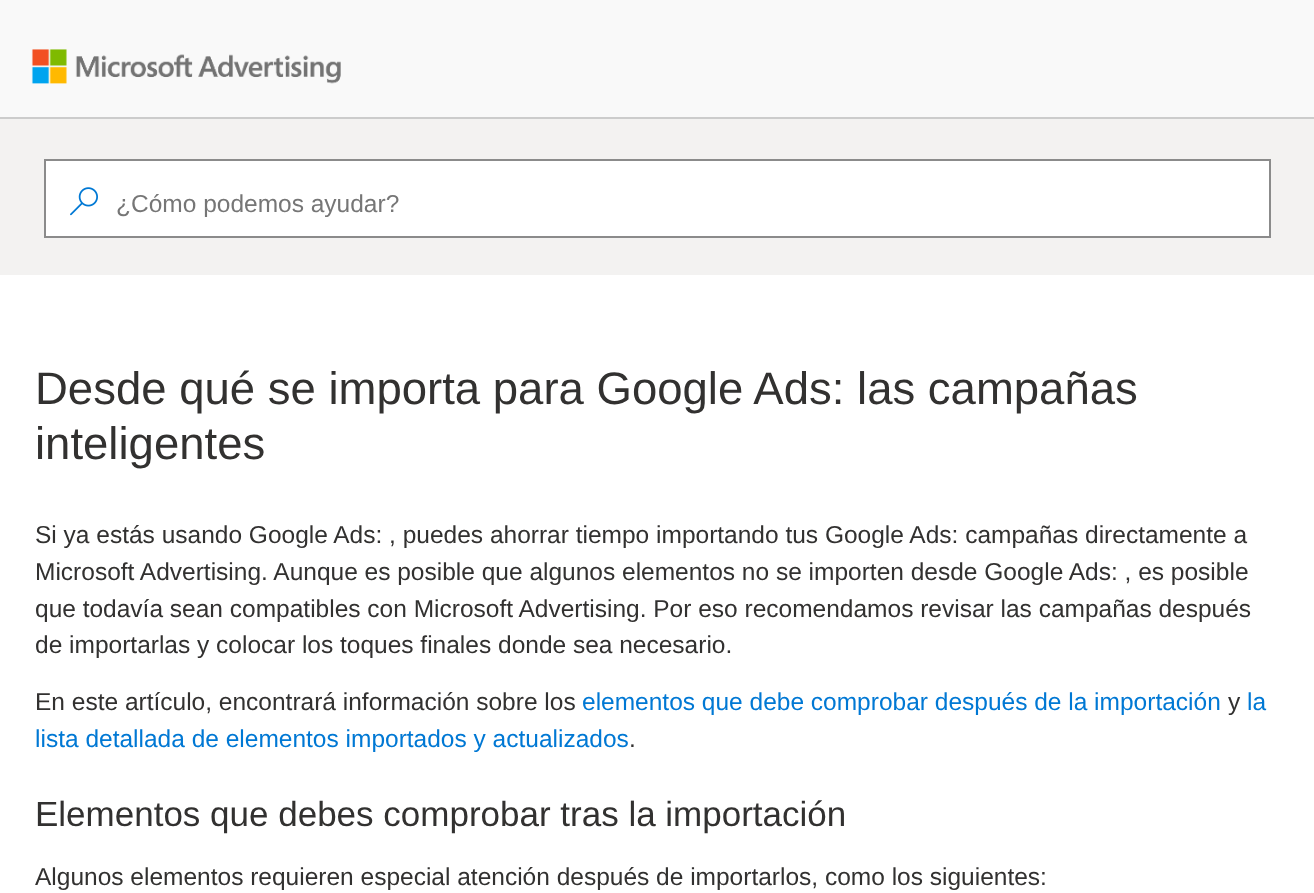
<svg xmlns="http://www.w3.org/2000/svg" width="1314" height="893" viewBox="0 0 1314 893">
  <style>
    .t1 { font: 24.5px Liberation Sans; fill: #767676; }
    .t2 { font: 45.5px Liberation Sans; fill: #323130; }
    .t3 { font: 24.5px Liberation Sans; fill: #323130; }
    .t4 { font: 24.5px Liberation Sans; fill: #0078d4; }
    .t5 { font: 35px Liberation Sans; fill: #323130; }
  </style>
  <rect width="100%" height="100%" fill="#fff"/>
  <rect x="0" y="0" width="1314" height="117" fill="#f9f9f9"/>
  <rect x="0" y="117" width="1314" height="2" fill="#ccc"/>
  <image x="31" y="49" width="310" height="35" href="images/1.png"/>
  <rect x="0" y="119" width="1314" height="156" fill="#f3f2f1"/>
  <rect x="45" y="160" width="1225" height="77" fill="#fff" stroke="#8b8b8b" stroke-width="2"/>
  <image x="70" y="187" width="28" height="29" href="images/2.png"/>
  <text x="116" y="212" class="t1">¿Cómo podemos ayudar?</text>
  <text x="35" y="404" class="t2">Desde qué se importa para Google Ads: las campañas</text>
  <text x="35" y="459" class="t2">inteligentes</text>
  <text x="35" y="543" class="t3">Si ya estás usando Google Ads: , puedes ahorrar tiempo importando tus Google Ads: campañas directamente a</text>
  <text x="35" y="580" class="t3">Microsoft Advertising. Aunque es posible que algunos elementos no se importen desde Google Ads: , es posible</text>
  <text x="35" y="617" class="t3">que todavía sean compatibles con Microsoft Advertising. Por eso recomendamos revisar las campañas después</text>
  <text x="35" y="653" class="t3">de importarlas y colocar los toques finales donde sea necesario.</text>
  <text x="35" y="710" class="t3">En este artículo, encontrará información sobre los</text>
  <text x="582" y="710" class="t4">elementos que debe comprobar después de la importación</text>
  <text x="1228" y="710" class="t3">y</text>
  <text x="1247" y="710" class="t4">la</text>
  <text x="35" y="747" class="t4">lista detallada de elementos importados y actualizados</text>
  <text x="629" y="747" class="t3">.</text>
  <text x="35" y="826" class="t5">Elementos que debes comprobar tras la importación</text>
  <text x="35" y="885" class="t3">Algunos elementos requieren especial atención después de importarlos, como los siguientes:</text>
</svg>
